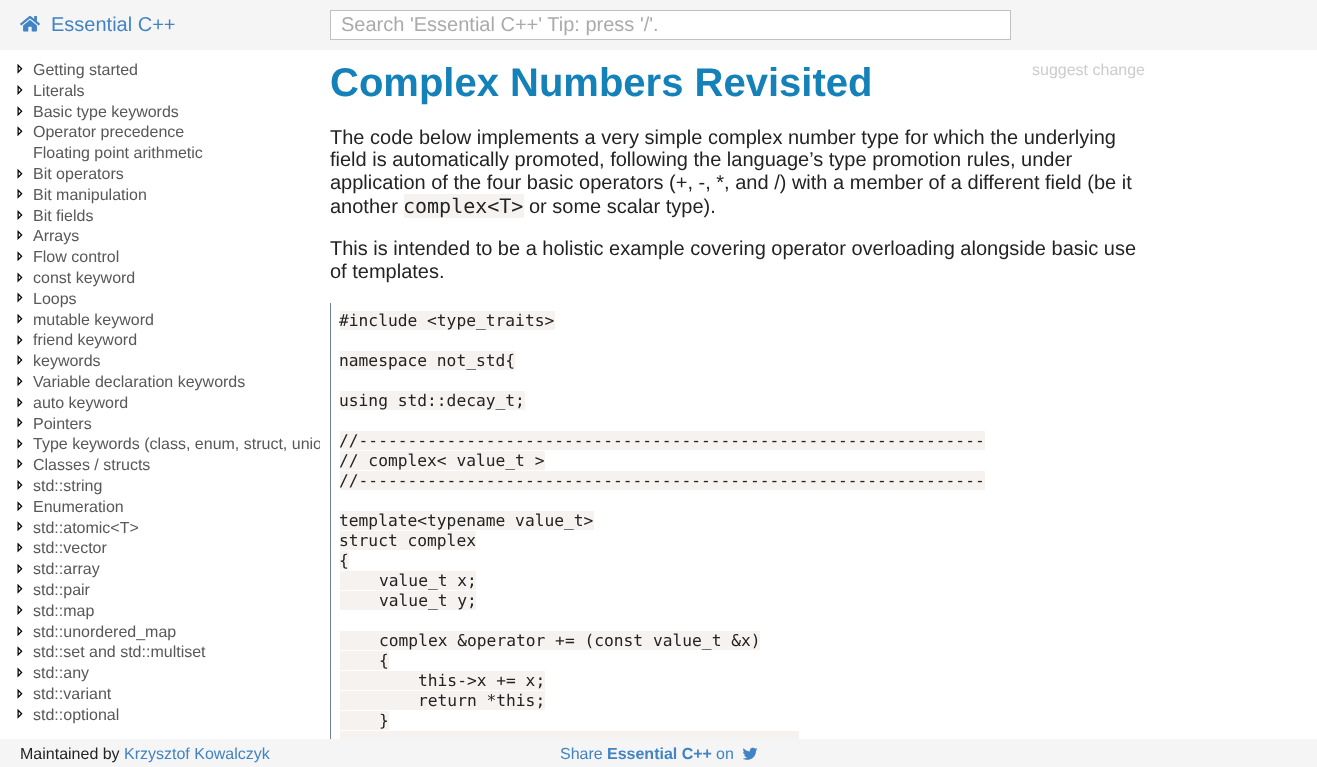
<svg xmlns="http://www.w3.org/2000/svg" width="1317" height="767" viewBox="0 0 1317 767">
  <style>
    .t1 { font: 20px Liberation Sans; fill: #4183c4; }
    .t2 { font: 20px Liberation Sans; fill: #aaa; }
    .t3 { font: 16px Liberation Sans; fill: #585858; }
    .t4 { font: bold 40px Liberation Sans; fill: #1481b8; }
    .t5 { font: 16px Liberation Sans; fill: #ccc; }
    .t6 { font: 20px Liberation Sans; fill: #232323; }
    .t7 { font: 20px DejaVu Sans Mono; fill: #232323; }
    .t8 { font: 16.25px DejaVu Sans Mono; fill: #232323; }
    .t9 { font: 16px Liberation Sans; fill: #232323; }
    .t10 { font: 16px Liberation Sans; fill: #4183c4; }
    .t11 { font: bold 16px Liberation Sans; fill: #4183c4; }
  </style>
  <defs>
    <clipPath id="clip1"><rect x="0" y="60" width="320" height="669"/></clipPath>
  </defs>
  <rect width="100%" height="100%" fill="#fff"/>
  <rect x="0" y="0" width="1317" height="50" fill="#f5f5f5"/>
  <image x="20" y="16" width="20" height="16" href="images/1.png"/>
  <text x="51" y="31" class="t1">Essential C++</text>
  <rect x="330.5" y="10.5" width="680" height="29" fill="#fff" stroke="#c0c0c0"/>
  <text x="341" y="31" class="t2">Search 'Essential C++' Tip: press '/'.</text>
  <image x="17" y="63" width="6" height="11" href="images/2.png"/>
  <text x="33" y="75" class="t3">Getting started</text>
  <image x="17" y="85" width="6" height="10" href="images/3.png"/>
  <text x="33" y="96" class="t3">Literals</text>
  <image x="17" y="106" width="6" height="11" href="images/4.png"/>
  <text x="33" y="117" class="t3">Basic type keywords</text>
  <image x="17" y="126" width="6" height="11" href="images/4.png"/>
  <text x="33" y="137" class="t3">Operator precedence</text>
  <text x="33" y="158" class="t3">Floating point arithmetic</text>
  <image x="17" y="168" width="6" height="11" href="images/2.png"/>
  <text x="33" y="179" class="t3">Bit operators</text>
  <image x="17" y="188" width="6" height="11" href="images/2.png"/>
  <text x="33" y="200" class="t3">Bit manipulation</text>
  <image x="17" y="210" width="6" height="10" href="images/3.png"/>
  <text x="33" y="221" class="t3">Bit fields</text>
  <image x="17" y="230" width="6" height="10" href="images/3.png"/>
  <text x="33" y="241" class="t3">Arrays</text>
  <image x="17" y="251" width="6" height="11" href="images/4.png"/>
  <text x="33" y="262" class="t3">Flow control</text>
  <image x="17" y="272" width="6" height="11" href="images/5.png"/>
  <text x="33" y="283" class="t3">const keyword</text>
  <image x="17" y="292" width="6" height="11" href="images/5.png"/>
  <text x="33" y="304" class="t3">Loops</text>
  <image x="17" y="313" width="6" height="11" href="images/2.png"/>
  <text x="33" y="325" class="t3">mutable keyword</text>
  <image x="17" y="335" width="6" height="10" href="images/3.png"/>
  <text x="33" y="345" class="t3">friend keyword</text>
  <image x="17" y="355" width="6" height="10" href="images/3.png"/>
  <text x="33" y="366" class="t3">keywords</text>
  <image x="17" y="376" width="6" height="11" href="images/4.png"/>
  <text x="33" y="387" class="t3">Variable declaration keywords</text>
  <image x="17" y="397" width="6" height="11" href="images/5.png"/>
  <text x="33" y="408" class="t3">auto keyword</text>
  <image x="17" y="417" width="6" height="11" href="images/5.png"/>
  <text x="33" y="429" class="t3">Pointers</text>
  <image x="17" y="438" width="6" height="11" href="images/2.png"/>
  <g clip-path="url(#clip1)">
    <text x="33" y="449" class="t3">Type keywords (class, enum, struct, unio</text>
  </g>
  <image x="17" y="458" width="6" height="11" href="images/2.png"/>
  <text x="33" y="470" class="t3">Classes / structs</text>
  <image x="17" y="480" width="6" height="10" href="images/3.png"/>
  <text x="33" y="491" class="t3">std::string</text>
  <image x="17" y="501" width="6" height="11" href="images/4.png"/>
  <text x="33" y="512" class="t3">Enumeration</text>
  <image x="17" y="521" width="6" height="11" href="images/4.png"/>
  <text x="33" y="533" class="t3">std::atomic&lt;T&gt;</text>
  <image x="17" y="542" width="6" height="11" href="images/5.png"/>
  <text x="33" y="553" class="t3">std::vector</text>
  <image x="17" y="563" width="6" height="11" href="images/2.png"/>
  <text x="33" y="574" class="t3">std::array</text>
  <image x="17" y="583" width="6" height="11" href="images/2.png"/>
  <text x="33" y="595" class="t3">std::pair</text>
  <image x="17" y="605" width="6" height="10" href="images/3.png"/>
  <text x="33" y="616" class="t3">std::map</text>
  <image x="17" y="626" width="6" height="11" href="images/4.png"/>
  <text x="33" y="637" class="t3">std::unordered_map</text>
  <image x="17" y="646" width="6" height="11" href="images/4.png"/>
  <text x="33" y="657" class="t3">std::set and std::multiset</text>
  <image x="17" y="667" width="6" height="11" href="images/5.png"/>
  <text x="33" y="678" class="t3">std::any</text>
  <image x="17" y="688" width="6" height="11" href="images/2.png"/>
  <text x="33" y="699" class="t3">std::variant</text>
  <image x="17" y="708" width="6" height="11" href="images/2.png"/>
  <text x="33" y="720" class="t3">std::optional</text>
  <text x="330" y="96" class="t4">Complex Numbers Revisited</text>
  <text x="1032" y="75" class="t5">suggest change</text>
  <text x="330" y="144" class="t6">The code below implements a very simple complex number type for which the underlying</text>
  <text x="330" y="166" class="t6">field is automatically promoted, following the language’s type promotion rules, under</text>
  <text x="330" y="189" class="t6">application of the four basic operators (+, -, *, and /) with a member of a different field (be it</text>
  <text x="330" y="213" class="t6">another</text>
  <rect x="404" y="194" width="120" height="24" fill="#f5f2f0"/>
  <text x="403" y="213" class="t7">complex&lt;T&gt;</text>
  <text x="529" y="213" class="t6">or some scalar type).</text>
  <text x="330" y="255" class="t6">This is intended to be a holistic example covering operator overloading alongside basic use</text>
  <text x="330" y="278" class="t6">of templates.</text>
  <rect x="330" y="303" width="1" height="436" fill="#708090"/>
  <rect x="340" y="311" width="215" height="19" fill="#f5f2f0"/>
  <text x="339" y="326" class="t8">#include &lt;type_traits&gt;</text>
  <rect x="340" y="351" width="175" height="19" fill="#f5f2f0"/>
  <text x="339" y="366" class="t8">namespace not_std{</text>
  <rect x="340" y="391" width="185" height="19" fill="#f5f2f0"/>
  <text x="339" y="406" class="t8">using std::decay_t;</text>
  <rect x="340" y="431" width="645" height="19" fill="#f5f2f0"/>
  <text x="339" y="446" class="t8">//----------------------------------------------------------------</text>
  <rect x="340" y="451" width="205" height="19" fill="#f5f2f0"/>
  <text x="339" y="466" class="t8">// complex&lt; value_t &gt;</text>
  <rect x="340" y="471" width="645" height="19" fill="#f5f2f0"/>
  <text x="339" y="486" class="t8">//----------------------------------------------------------------</text>
  <rect x="340" y="511" width="254" height="19" fill="#f5f2f0"/>
  <text x="339" y="526" class="t8">template&lt;typename value_t&gt;</text>
  <rect x="340" y="531" width="136" height="19" fill="#f5f2f0"/>
  <text x="339" y="546" class="t8">struct complex</text>
  <rect x="340" y="551" width="9" height="19" fill="#f5f2f0"/>
  <text x="339" y="566" class="t8">{</text>
  <rect x="340" y="571" width="136" height="19" fill="#f5f2f0"/>
  <text x="379" y="586" class="t8">value_t x;</text>
  <rect x="340" y="591" width="136" height="19" fill="#f5f2f0"/>
  <text x="379" y="606" class="t8">value_t y;</text>
  <rect x="340" y="631" width="420" height="19" fill="#f5f2f0"/>
  <text x="379" y="646" class="t8">complex &amp;operator += (const value_t &amp;x)</text>
  <rect x="340" y="651" width="49" height="19" fill="#f5f2f0"/>
  <text x="379" y="666" class="t8">{</text>
  <rect x="340" y="671" width="205" height="19" fill="#f5f2f0"/>
  <text x="418" y="686" class="t8">this-&gt;x += x;</text>
  <rect x="340" y="691" width="205" height="19" fill="#f5f2f0"/>
  <text x="418" y="706" class="t8">return *this;</text>
  <rect x="340" y="711" width="49" height="19" fill="#f5f2f0"/>
  <text x="379" y="726" class="t8">}</text>
  <rect x="340" y="731" width="459" height="8" fill="#f5f2f0"/>
  <rect x="0" y="739" width="1317" height="28" fill="#f5f5f5"/>
  <text x="20" y="759" class="t9">Maintained by</text>
  <text x="124" y="759" class="t10">Krzysztof Kowalczyk</text>
  <text x="560" y="759" class="t10">Share</text>
  <text x="607" y="759" class="t11">Essential C++</text>
  <text x="716" y="759" class="t10">on</text>
  <image x="743" y="747" width="15" height="13" href="images/6.png"/>
</svg>
